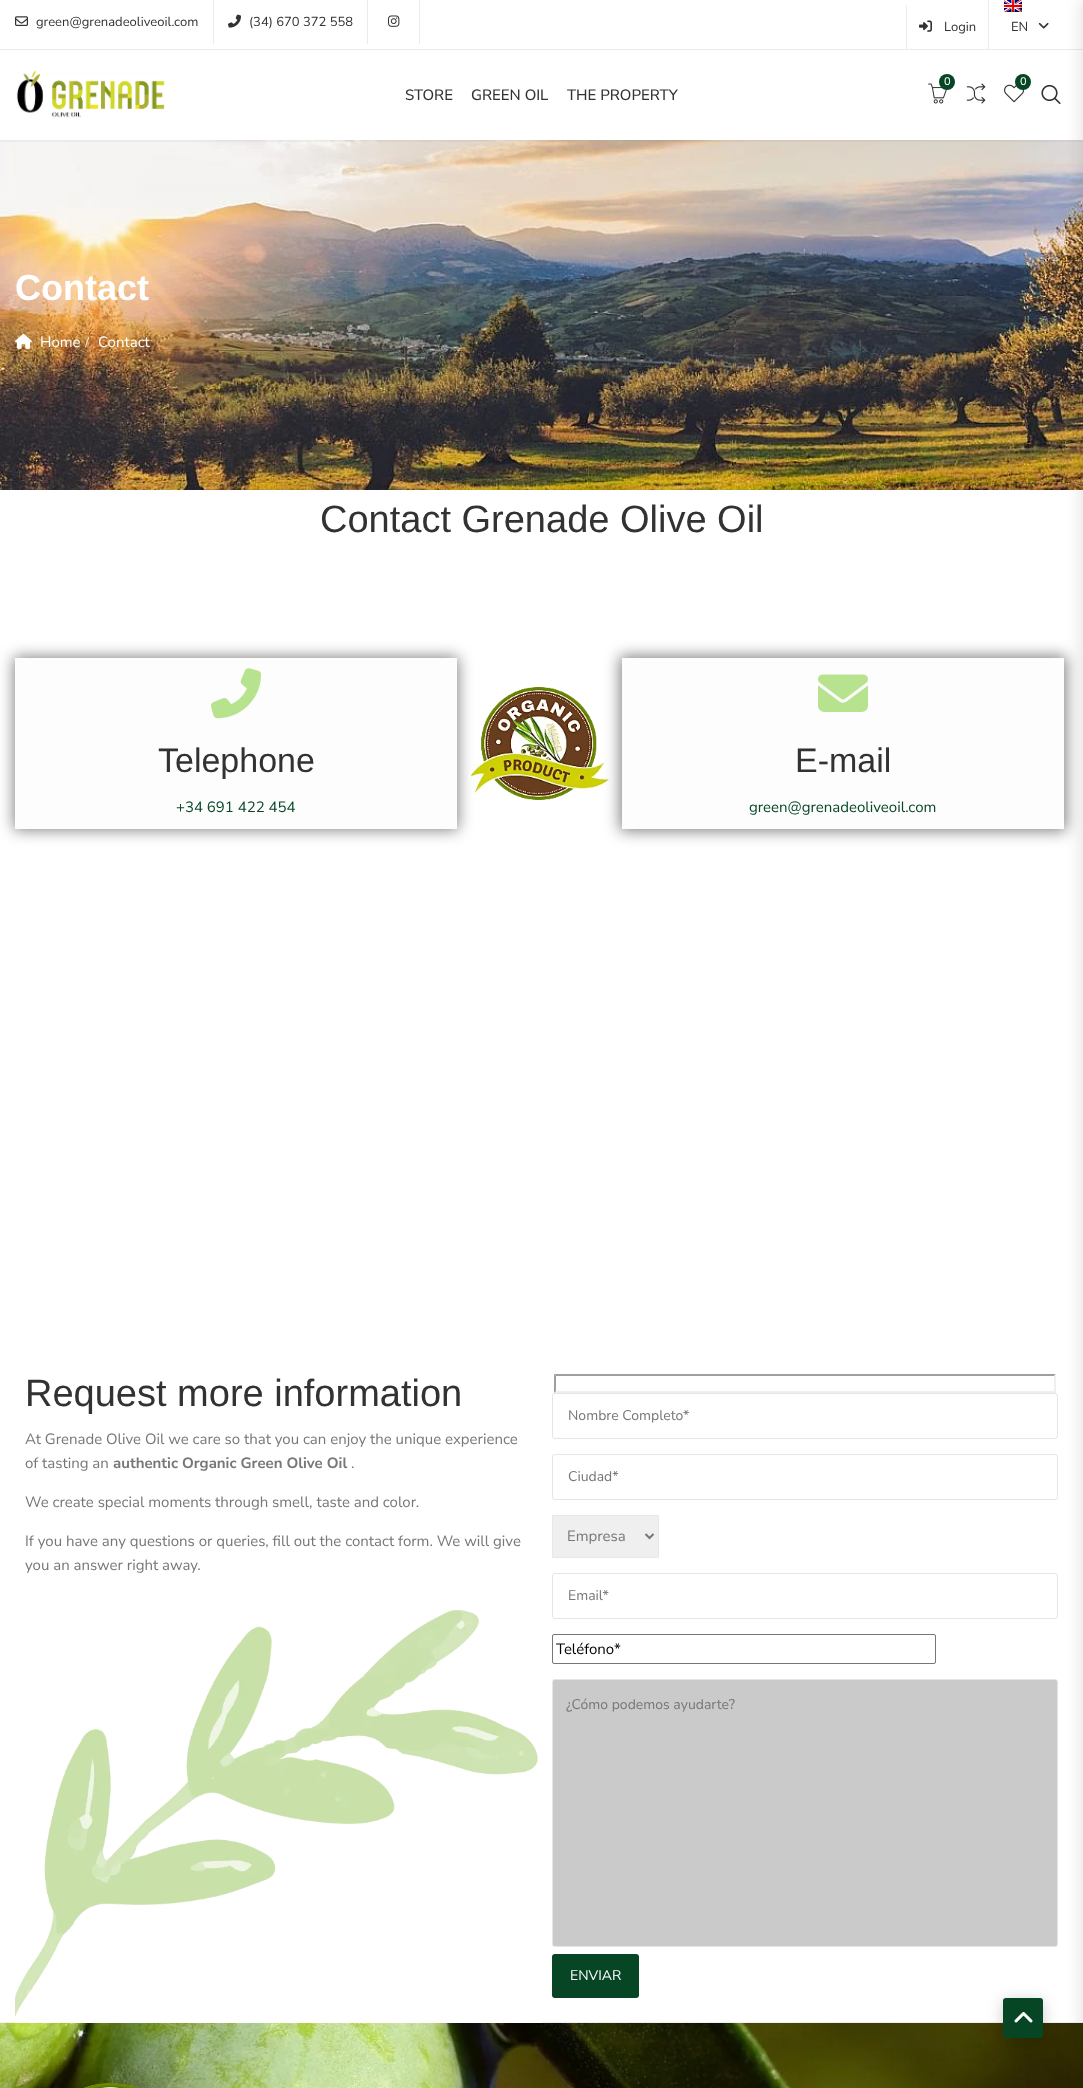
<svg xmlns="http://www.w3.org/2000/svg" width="1083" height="2088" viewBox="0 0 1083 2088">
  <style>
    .t1 { font: 13px Nunito Sans; fill: #323232; }
    .t2 { font: 500 11px Nunito Sans; fill: #fff; }
    .t3 { font: 500 15px Nunito Sans; fill: #323232; }
    .t4 { font: bold 36px Liberation Sans; fill: #fff; }
    .t5 { font: 15px Nunito Sans; fill: #fff; }
    .t6 { font: 15px Liberation Serif; fill: #fff; }
    .t7 { font: 38px Liberation Sans; fill: #323232; }
    .t8 { font: 34px Liberation Sans; fill: #323232; }
    .t9 { font: 15px Nunito Sans; fill: #074625; }
    .t10 { font: 15px Nunito Sans; fill: #777; }
    .t11 { font: bold 15px Nunito Sans; fill: #777; }
    .t12 { font: 14px Nunito Sans; fill: #777; }
    .t13 { font: 15px Nunito Sans; fill: #000; }
    .t14 { font: 14px Nunito Sans; fill: #fff; }
  </style>
  <defs>
    <clipPath id="clip1"><rect x="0" y="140" width="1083" height="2"/></clipPath>
  </defs>
  <rect width="100%" height="100%" fill="#fff"/>
  <image x="0" y="140" width="1083" height="350" href="images/12.png"/>
  <g clip-path="url(#clip1)">
    <rect x="0" y="2" width="1083" height="140" fill="#0000000d" filter="blur(1.5px)"/>
  </g>
  <rect x="0" y="49" width="1083" height="1" fill="#ebebeb"/>
  <image x="15" y="16" width="13" height="10" href="images/1.png"/>
  <text x="36" y="26" class="t1">green@grenadeoliveoil.com</text>
  <rect x="213" y="0" width="1" height="44" fill="#ebebeb"/>
  <image x="228" y="14" width="13" height="14" href="images/2.png"/>
  <text x="249" y="26" class="t1">(34) 670 372 558</text>
  <rect x="419" y="0" width="1" height="44" fill="#ebebeb"/>
  <rect x="367" y="0" width="1" height="44" fill="#ebebeb"/>
  <image x="388" y="15" width="12" height="12" href="images/3.png"/>
  <rect x="906" y="5" width="1" height="44" fill="#ebebeb"/>
  <image x="919" y="20" width="13" height="12" href="images/4.png"/>
  <text x="944" y="31" class="t1">Login</text>
  <rect x="988" y="0" width="1" height="49" fill="#ebebeb"/>
  <image x="1004" y="0" width="18" height="12" href="images/5.png"/>
  <text x="1011" y="31" class="t1">EN</text>
  <image x="1038" y="22" width="11" height="7" href="images/6.png"/>
  <image x="16" y="70" width="149" height="48" href="images/7.png"/>
  <image x="928" y="83" width="20" height="21" href="images/8.png"/>
  <circle cx="947" cy="82" r="8" fill="#074625"/>
  <text x="944" y="85" class="t2">0</text>
  <image x="1004" y="84" width="20" height="19" href="images/9.png"/>
  <circle cx="1023" cy="82" r="8" fill="#074625"/>
  <text x="1020" y="85" class="t2">0</text>
  <image x="966" y="83" width="20" height="21" href="images/10.png"/>
  <image x="1041" y="84" width="20" height="20" href="images/11.png"/>
  <text x="405" y="100" class="t3">STORE</text>
  <text x="471" y="100" class="t3">GREEN OIL</text>
  <text x="567" y="100" class="t3">THE PROPERTY</text>
  <text x="15" y="300" class="t4">Contact</text>
  <image x="15" y="333" width="17" height="16" href="images/13.png"/>
  <text x="40" y="347" class="t5">Home</text>
  <text x="85" y="347" class="t6">/</text>
  <text x="98" y="347" class="t5">Contact</text>
  <text x="320" y="532" class="t7">Contact Grenade Olive Oil</text>
  <rect x="14" y="657" width="444" height="173" fill="#00000080" filter="blur(7.5px)"/>
  <rect x="15" y="658" width="442" height="171" fill="#fdfdfd"/>
  <image x="211" y="668" width="50" height="51" href="images/14.png"/>
  <text x="158" y="772" class="t8">Telephone</text>
  <text x="176" y="812" class="t9">+34 691 422 454</text>
  <image x="468" y="687" width="142" height="113" href="images/15.png"/>
  <rect x="620" y="656" width="446" height="175" fill="#00000080" filter="blur(7.5px)"/>
  <rect x="622" y="658" width="442" height="171" fill="#fdfdfd"/>
  <image x="818" y="674" width="50" height="38" href="images/16.png"/>
  <text x="795" y="772" class="t8">E-mail</text>
  <text x="749" y="812" class="t9">green@grenadeoliveoil.com</text>
  <rect x="0" y="2022" width="1083" height="1" fill="#f0f0f0"/>
  <rect x="15" y="2022" width="527" height="1" fill="#fff"/>
  <text x="25" y="1406" class="t7">Request more information</text>
  <text x="25" y="1444" class="t10">At Grenade Olive Oil we care so that you can enjoy the unique experience</text>
  <text x="25" y="1468" class="t10">of tasting an</text>
  <text x="113" y="1468" class="t11">authentic Organic Green Olive Oil</text>
  <text x="351" y="1468" class="t10">.</text>
  <text x="25" y="1507" class="t10">We create special moments through smell, taste and color.</text>
  <text x="25" y="1546" class="t10">If you have any questions or queries, fill out the contact form. We will give</text>
  <text x="25" y="1570" class="t10">you an answer right away.</text>
  <image x="15" y="1610" width="523" height="407" href="images/17.png"/>
  <path d="M554 1374H1056L1054 1376H556Z" fill="#9f9f9f"/>
  <path d="M1056 1374V1393L1054 1391V1376Z" fill="#efefef"/>
  <path d="M1056 1393H554L556 1391H1054Z" fill="#efefef"/>
  <path d="M554 1393V1374L556 1376V1391Z" fill="#9f9f9f"/>
  <rect x="552.5" y="1393.5" width="505" height="45" rx="2.5" fill="none" stroke="#e5e5e5"/>
  <text x="568" y="1420" class="t12">Nombre Completo*</text>
  <rect x="552.5" y="1454.5" width="505" height="45" rx="2.5" fill="none" stroke="#e5e5e5"/>
  <text x="568" y="1481" class="t12">Ciudad*</text>
  <rect x="552.5" y="1515.5" width="106" height="42" fill="#efefef" stroke="#e8e8e8"/>
  <path d="M645.5 1534L649.5 1538L653.5 1534" fill="none" stroke="#777" stroke-width="2"/>
  <text x="567" y="1541" class="t10">Empresa</text>
  <rect x="552.5" y="1573.5" width="505" height="45" rx="2.5" fill="none" stroke="#e5e5e5"/>
  <text x="568" y="1600" class="t12">Email*</text>
  <rect x="552.5" y="1634.5" width="383" height="29" rx="1.5" fill="none" stroke="#767676"/>
  <text x="556" y="1654" class="t13">Teléfono*</text>
  <rect x="552.5" y="1679.5" width="505" height="267" rx="2.5" fill="#cacaca" stroke="#e5e5e5"/>
  <text x="566" y="1709" class="t12">¿Cómo podemos ayudarte?</text>
  <rect x="552" y="1954" width="87" height="44" rx="3" fill="#074625"/>
  <text x="570" y="1980" class="t14">ENVIAR</text>
  <image x="0" y="2023" width="1083" height="65" href="images/19.png"/>
  <rect x="1003" y="2001" width="40" height="40" rx="3" fill="#00000033" filter="blur(7.5px)"/>
  <rect x="1003" y="1998" width="40" height="40" rx="3" fill="#074625"/>
  <image x="1014" y="2012" width="19" height="11" href="images/18.png"/>
  <image x="83" y="2083" width="55" height="5" href="images/20.png"/>
  <rect x="1080" y="0" width="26" height="2088" fill="#0000001a" filter="blur(7.5px)"/>
</svg>
